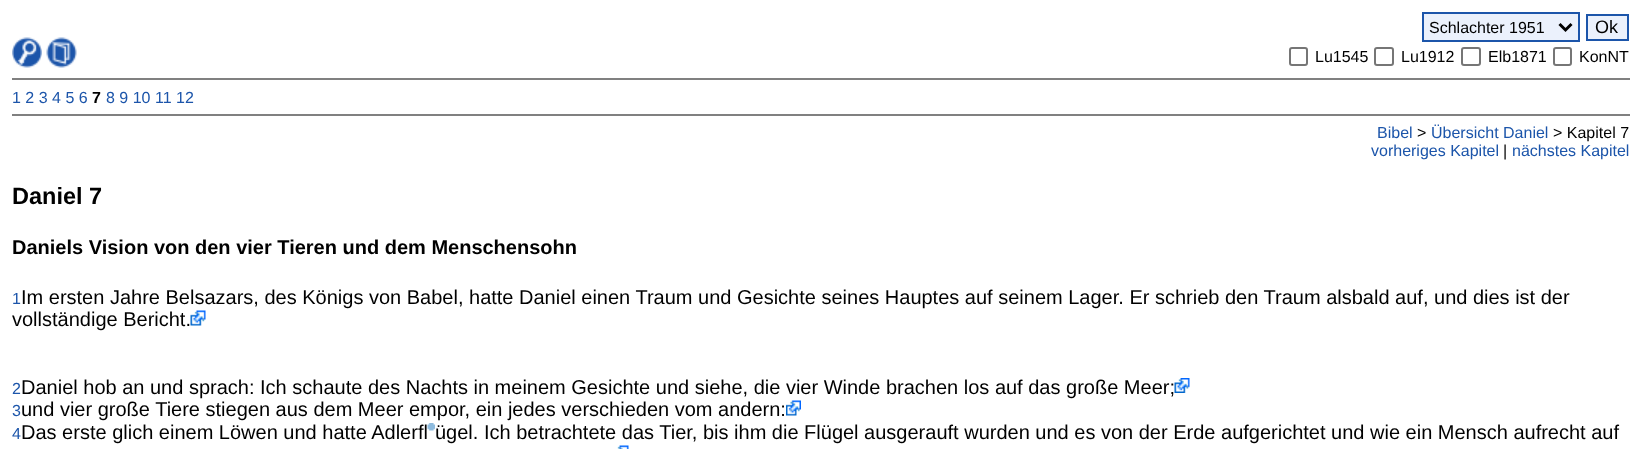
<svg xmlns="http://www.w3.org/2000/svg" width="1641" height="449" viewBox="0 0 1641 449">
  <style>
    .t1 { font: 16px Liberation Sans; fill: #000; }
    .t2 { font: 18px Liberation Sans; fill: #000; }
    .t3 { font: 16px Liberation Sans; fill: #1c55aa; }
    .t4 { font: bold 16px Liberation Sans; fill: #000; }
    .t5 { font: bold 23.5px Liberation Sans; fill: #000; }
    .t6 { font: bold 20px Liberation Sans; fill: #000; }
    .t7 { font: 20px Liberation Sans; fill: #000; }
  </style>
  <rect width="100%" height="100%" fill="#fff"/>
  <image x="12" y="37" width="30" height="31" href="images/1.png"/>
  <image x="46" y="37" width="31" height="31" href="images/2.png"/>
  <rect x="1423" y="13" width="156" height="28" fill="#ebf1fc" stroke="#1c55aa" stroke-width="2"/>
  <path d="M1559.5 24L1565.5 30L1571.5 24" fill="none" stroke="#000" stroke-width="3"/>
  <text x="1429" y="33" class="t1">Schlachter 1951</text>
  <rect x="1587" y="15" width="41" height="25" fill="#ebf1fc" stroke="#1c55aa" stroke-width="2"/>
  <text x="1595" y="33" class="t2">Ok</text>
  <rect x="1290" y="48" width="17" height="17" rx="2" fill="none" stroke="#767676" stroke-width="2"/>
  <text x="1315" y="62" class="t1">Lu1545</text>
  <rect x="1375" y="48" width="18" height="17" rx="2" fill="none" stroke="#767676" stroke-width="2"/>
  <text x="1401" y="62" class="t1">Lu1912</text>
  <rect x="1462" y="48" width="18" height="17" rx="2" fill="none" stroke="#767676" stroke-width="2"/>
  <text x="1488" y="62" class="t1">Elb1871</text>
  <rect x="1554" y="48" width="17" height="17" rx="2" fill="none" stroke="#767676" stroke-width="2"/>
  <text x="1579" y="62" class="t1">KonNT</text>
  <rect x="12" y="78" width="1618" height="2" fill="#808080"/>
  <text x="12" y="103" class="t3">1 2 3 4 5 6</text>
  <text x="92" y="103" class="t4">7</text>
  <text x="106" y="103" class="t3">8 9 10 11 12</text>
  <rect x="12" y="114" width="1618" height="2" fill="#808080"/>
  <text x="1377" y="138" class="t3">Bibel</text>
  <text x="1417" y="138" class="t1">&gt;</text>
  <text x="1431" y="138" class="t3">Übersicht Daniel</text>
  <text x="1553" y="138" class="t1">&gt; Kapitel 7</text>
  <text x="1371" y="156" class="t3">vorheriges Kapitel</text>
  <text x="1503" y="156" class="t1">|</text>
  <text x="1512" y="156" class="t3">nächstes Kapitel</text>
  <text x="12" y="204" class="t5">Daniel 7</text>
  <text x="12" y="254" class="t6">Daniels Vision von den vier Tieren und dem Menschensohn</text>
  <text x="12" y="304" class="t3">1</text>
  <text x="21" y="304" class="t7">Im ersten Jahre Belsazars, des Königs von Babel, hatte Daniel einen Traum und Gesichte seines Hauptes auf seinem Lager. Er schrieb den Traum alsbald auf, und dies ist der</text>
  <text x="12" y="326" class="t7">vollständige Bericht.</text>
  <image x="190" y="310" width="16" height="16" href="images/3.png"/>
  <text x="12" y="394" class="t3">2</text>
  <text x="21" y="394" class="t7">Daniel hob an und sprach: Ich schaute des Nachts in meinem Gesichte und siehe, die vier Winde brachen los auf das große Meer;</text>
  <image x="1174" y="378" width="16" height="15" href="images/4.png"/>
  <text x="12" y="416" class="t3">3</text>
  <text x="21" y="416" class="t7">und vier große Tiere stiegen aus dem Meer empor, ein jedes verschieden vom andern:</text>
  <image x="786" y="400" width="15" height="16" href="images/5.png"/>
  <text x="12" y="439" class="t3">4</text>
  <text x="21" y="439" class="t7">Das erste glich einem Löwen und hatte Adlerfl</text>
  <image x="427" y="423" width="8" height="8" href="images/6.png"/>
  <text x="435" y="439" class="t7">ügel. Ich betrachtete das Tier, bis ihm die Flügel ausgerauft wurden und es von der Erde aufgerichtet und wie ein Mensch aufrecht auf</text>
  <image x="617" y="445" width="12" height="4" href="images/7.png"/>
</svg>
